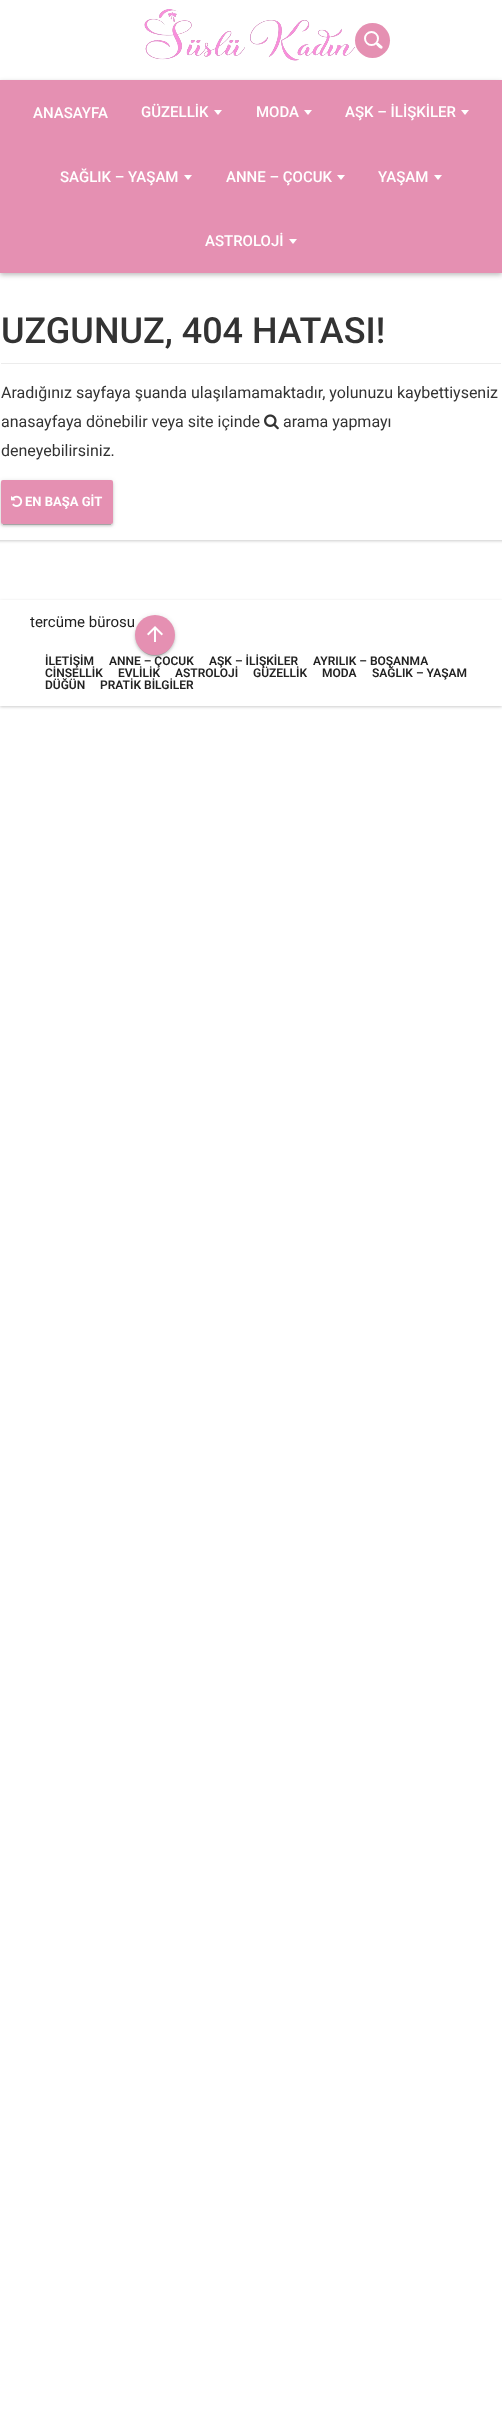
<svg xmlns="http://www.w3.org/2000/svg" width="502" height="2417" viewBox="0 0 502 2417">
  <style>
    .t1 { font: 500 15px Roboto; fill: #fff; }
    .t2 { font: 500 36px Roboto; fill: #333; }
    .t3 { font: 16px Roboto; fill: #333; }
    .t4 { font: bold 13px Roboto; fill: #fff; }
    .t5 { font: 15px Roboto; fill: #222; }
    .t6 { font: 600 12px Roboto; fill: #222; }
  </style>
  <defs>
    <clipPath id="clip1"><path d="M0 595H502V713H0ZM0 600H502V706H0Z" clip-rule="evenodd"/></clipPath>
  </defs>
  <rect width="100%" height="100%" fill="#fff"/>
  <image x="144" y="9" width="211" height="52" href="images/1.png"/>
  <circle cx="372.5" cy="40.5" r="17.5" fill="#e590b2"/>
  <circle cx="371.5" cy="38.5" r="6.5" fill="none" stroke="#fff" stroke-width="2"/>
  <path d="M378.5 43L382.5 46.5C382.5 47 382.5 47.5 382.5 48C381 50.5 377.5 46 376.5 45C375 43.5 377 41.5 378.5 43Z" fill="#fff"/>
  <rect x="-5" y="274" width="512" height="267" fill="#00000033" filter="blur(1.5px)"/>
  <rect x="0" y="273" width="502" height="267" fill="#fff"/>
  <rect x="0" y="82" width="502" height="193" fill="#00000042" filter="blur(2.5px)"/>
  <rect x="0" y="80" width="502" height="193" fill="#e590b2"/>
  <text x="33" y="118" class="t1">ANASAYFA</text>
  <text x="141" y="117" class="t1">GÜZELLİK</text>
  <path d="M214 110H222L218 115Z" fill="#fff"/>
  <text x="256" y="117" class="t1">MODA</text>
  <path d="M304 110H312L308 115Z" fill="#fff"/>
  <text x="345" y="117" class="t1">AŞK – İLİŞKİLER</text>
  <path d="M461 110H469L465 115Z" fill="#fff"/>
  <text x="60" y="182" class="t1">SAĞLIK – YAŞAM</text>
  <path d="M184 175H192L188 180Z" fill="#fff"/>
  <text x="226" y="182" class="t1">ANNE – ÇOCUK</text>
  <path d="M337 175H345L341 180Z" fill="#fff"/>
  <text x="378" y="182" class="t1">YAŞAM</text>
  <path d="M434 175H442L438 180Z" fill="#fff"/>
  <text x="205" y="246" class="t1">ASTROLOJİ</text>
  <path d="M289 239H297L293 244Z" fill="#fff"/>
  <text x="1" y="343" class="t2">UZGUNUZ, 404 HATASI!</text>
  <rect x="1" y="363" width="500" height="1" fill="#ececec"/>
  <text x="1" y="398" class="t3">Aradığınız sayfaya şuanda ulaşılamamaktadır, yolunuzu kaybettiyseniz</text>
  <text x="1" y="427" class="t3">anasayfaya dönebilir veya site içinde</text>
  <image x="264" y="414" width="15" height="16" href="images/2.png"/>
  <text x="283" y="427" class="t3">arama yapmayı</text>
  <text x="1" y="456" class="t3">deneyebilirsiniz.</text>
  <rect x="1" y="481" width="112" height="44" rx="2" fill="#0000001f" filter="blur(2.5px)"/>
  <rect x="3" y="485" width="108" height="40" fill="#00000033" filter="blur(0.5px)"/>
  <rect x="1" y="482" width="112" height="44" rx="2" fill="#00000024" filter="blur(1px)"/>
  <rect x="1" y="480" width="112" height="44" rx="2" fill="#e590b2"/>
  <image x="11" y="495" width="12" height="12" href="images/3.png"/>
  <text x="25" y="506" class="t4">EN BAŞA GİT</text>
  <g clip-path="url(#clip1)">
    <rect x="0" y="601" width="502" height="106" fill="#00000033" filter="blur(1.5px)"/>
  </g>
  <text x="30" y="627" class="t5">tercüme bürosu</text>
  <rect x="135" y="616" width="40" height="40" rx="20" fill="#0000001f" filter="blur(2.5px)"/>
  <rect x="137" y="620" width="36" height="36" rx="18" fill="#00000033" filter="blur(0.5px)"/>
  <rect x="135" y="617" width="40" height="40" rx="20" fill="#00000024" filter="blur(1px)"/>
  <circle cx="155" cy="635" r="20" fill="#e590b2"/>
  <image x="147" y="626" width="16" height="16" href="images/4.png"/>
  <text x="45" y="665" class="t6">İLETİŞİM</text>
  <text x="109" y="665" class="t6">ANNE – ÇOCUK</text>
  <text x="209" y="665" class="t6">AŞK – İLİŞKİLER</text>
  <text x="313" y="665" class="t6">AYRILIK – BOŞANMA</text>
  <text x="45" y="677" class="t6">CİNSELLİK</text>
  <text x="118" y="677" class="t6">EVLİLİK</text>
  <text x="175" y="677" class="t6">ASTROLOJİ</text>
  <text x="253" y="677" class="t6">GÜZELLİK</text>
  <text x="322" y="677" class="t6">MODA</text>
  <text x="372" y="677" class="t6">SAĞLIK – YAŞAM</text>
  <text x="45" y="689" class="t6">DÜĞÜN</text>
  <text x="100" y="689" class="t6">PRATİK BİLGİLER</text>
</svg>
